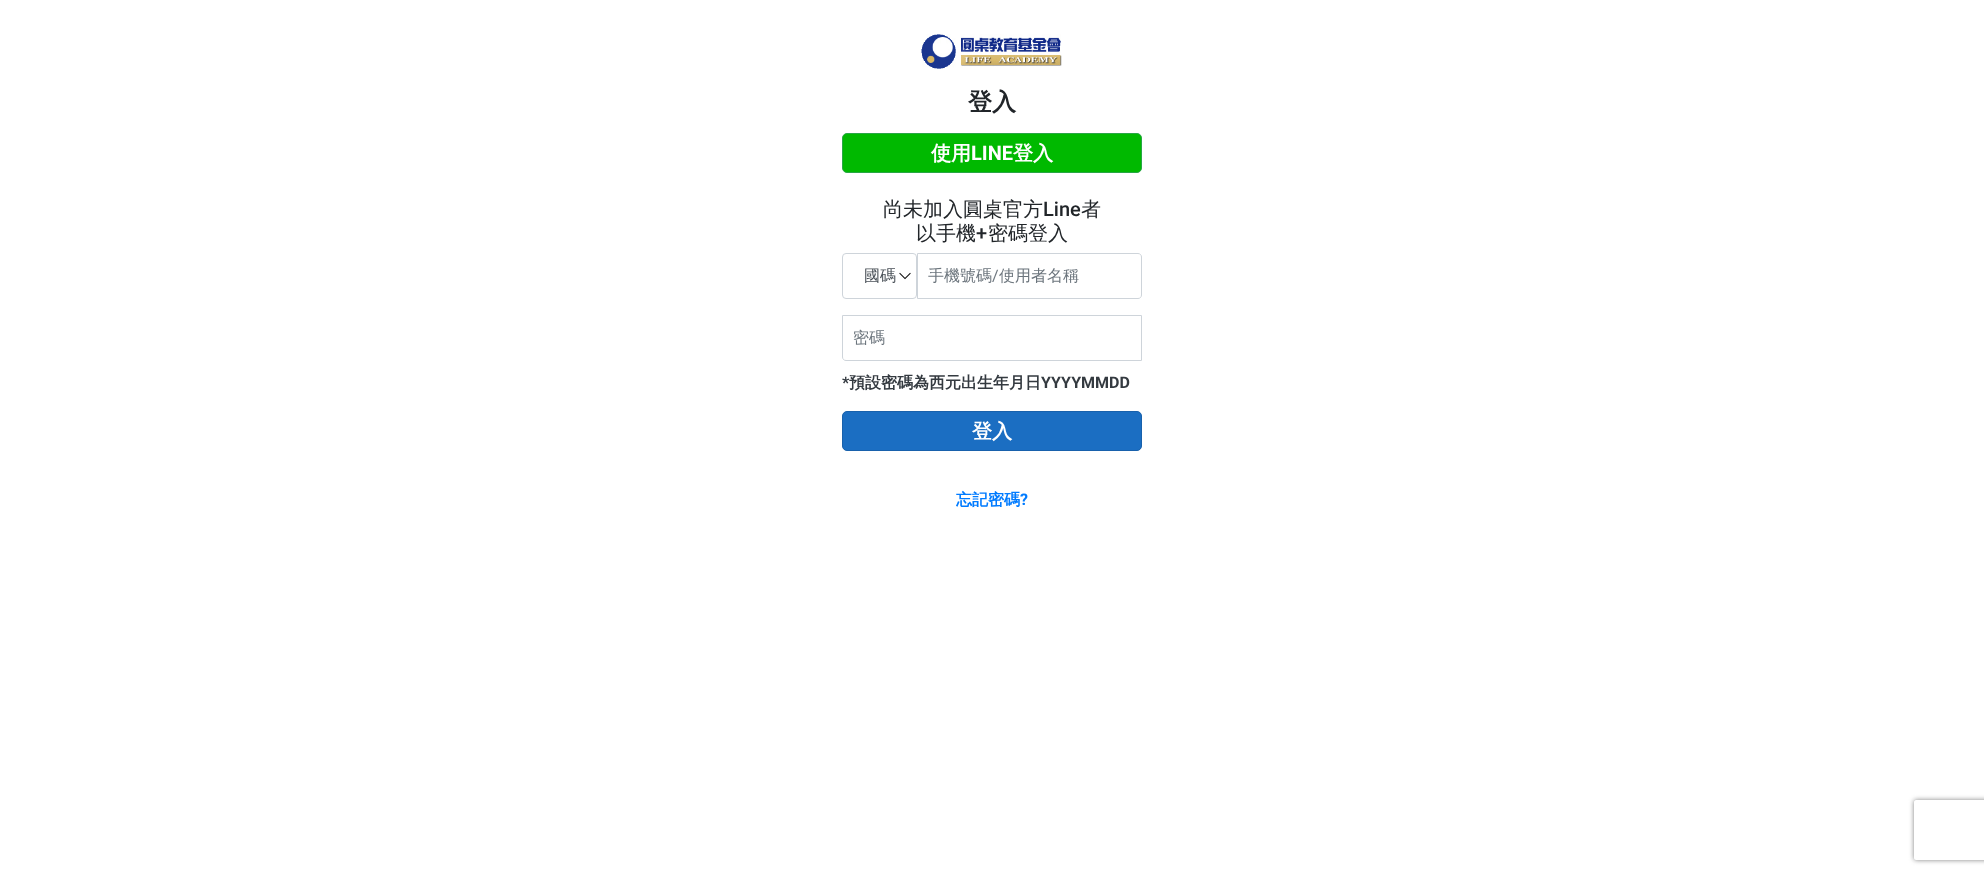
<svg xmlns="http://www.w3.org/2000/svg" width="1984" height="874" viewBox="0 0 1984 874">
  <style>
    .t1 { font: bold 24px WenQuanYi Zen Hei; fill: #212529; }
    .t2 { font: bold 20px WenQuanYi Zen Hei; fill: #fff; }
    .t3 { font: bold 20px Roboto; fill: #fff; }
    .t4 { font: 500 20px WenQuanYi Zen Hei; fill: #212529; }
    .t5 { font: 500 20px Roboto; fill: #212529; }
    .t6 { font: 500 16px WenQuanYi Zen Hei; fill: #495057; }
    .t7 { font: 500 16px WenQuanYi Zen Hei; fill: #6c757d; }
    .t8 { font: 16px Roboto; fill: #6c757d; }
    .t9 { font: bold 16px Roboto; fill: #343a40; }
    .t10 { font: bold 16px WenQuanYi Zen Hei; fill: #343a40; }
    .t11 { font: bold 16px WenQuanYi Zen Hei; fill: #007bff; }
    .t12 { font: bold 16px Roboto; fill: #007bff; }
  </style>
  <defs>
    <clipPath id="clip1"><path d="M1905 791H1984V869H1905ZM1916 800H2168C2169 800 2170 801 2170 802V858C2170 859 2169 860 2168 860H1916C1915 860 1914 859 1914 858V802C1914 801 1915 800 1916 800Z" clip-rule="evenodd"/></clipPath>
  </defs>
  <rect width="100%" height="100%" fill="#fff"/>
  <image x="921" y="34" width="141" height="35" href="images/1.png"/>
  <text x="968" y="110" class="t1">登入</text>
  <rect x="842.5" y="133.5" width="299" height="39" rx="4.5" fill="#00b900" stroke="#28a745"/>
  <text x="931" y="160" class="t2">使用</text>
  <text x="971" y="160" class="t3">LINE</text>
  <text x="1013" y="160" class="t2">登入</text>
  <text x="883" y="216" class="t4">尚未加入圓桌官方</text>
  <text x="1043" y="216" class="t5">Line</text>
  <text x="1081" y="216" class="t4">者</text>
  <text x="916" y="240" class="t4">以手機</text>
  <text x="976" y="240" class="t5">+</text>
  <text x="988" y="240" class="t4">密碼登入</text>
  <rect x="842.5" y="253.5" width="74" height="45" rx="3.5" fill="none" stroke="#ced4da"/>
  <text x="864" y="281" class="t6">國碼</text>
  <image x="899" y="272" width="12" height="8" href="images/2.png"/>
  <path d="M917.5 253.5H1138C1140 253.5 1141.5 255 1141.5 257V295C1141.5 297 1140 298.5 1138 298.5H917.5Z" fill="none" stroke="#ced4da"/>
  <text x="928" y="281" class="t7">手機號碼</text>
  <text x="992" y="281" class="t8">/</text>
  <text x="999" y="281" class="t7">使用者名稱</text>
  <path d="M842.5 315.5H1141.5V360.5H846C844 360.5 842.5 359 842.5 357Z" fill="none" stroke="#ced4da"/>
  <text x="853" y="343" class="t7">密碼</text>
  <text x="842" y="388" class="t9">*</text>
  <text x="849" y="388" class="t10">預設密碼為西元出生年月日</text>
  <text x="1041" y="388" class="t9">YYYYMMDD</text>
  <rect x="842.5" y="411.5" width="299" height="39" rx="4.5" fill="#1b6ec2" stroke="#1861ac"/>
  <text x="972" y="438" class="t2">登入</text>
  <text x="956" y="505" class="t11">忘記密碼</text>
  <text x="1020" y="505" class="t12">?</text>
  <g clip-path="url(#clip1)">
    <rect x="1914" y="800" width="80" height="60" rx="2" fill="#808080" filter="blur(2.5px)"/>
  </g>
</svg>
